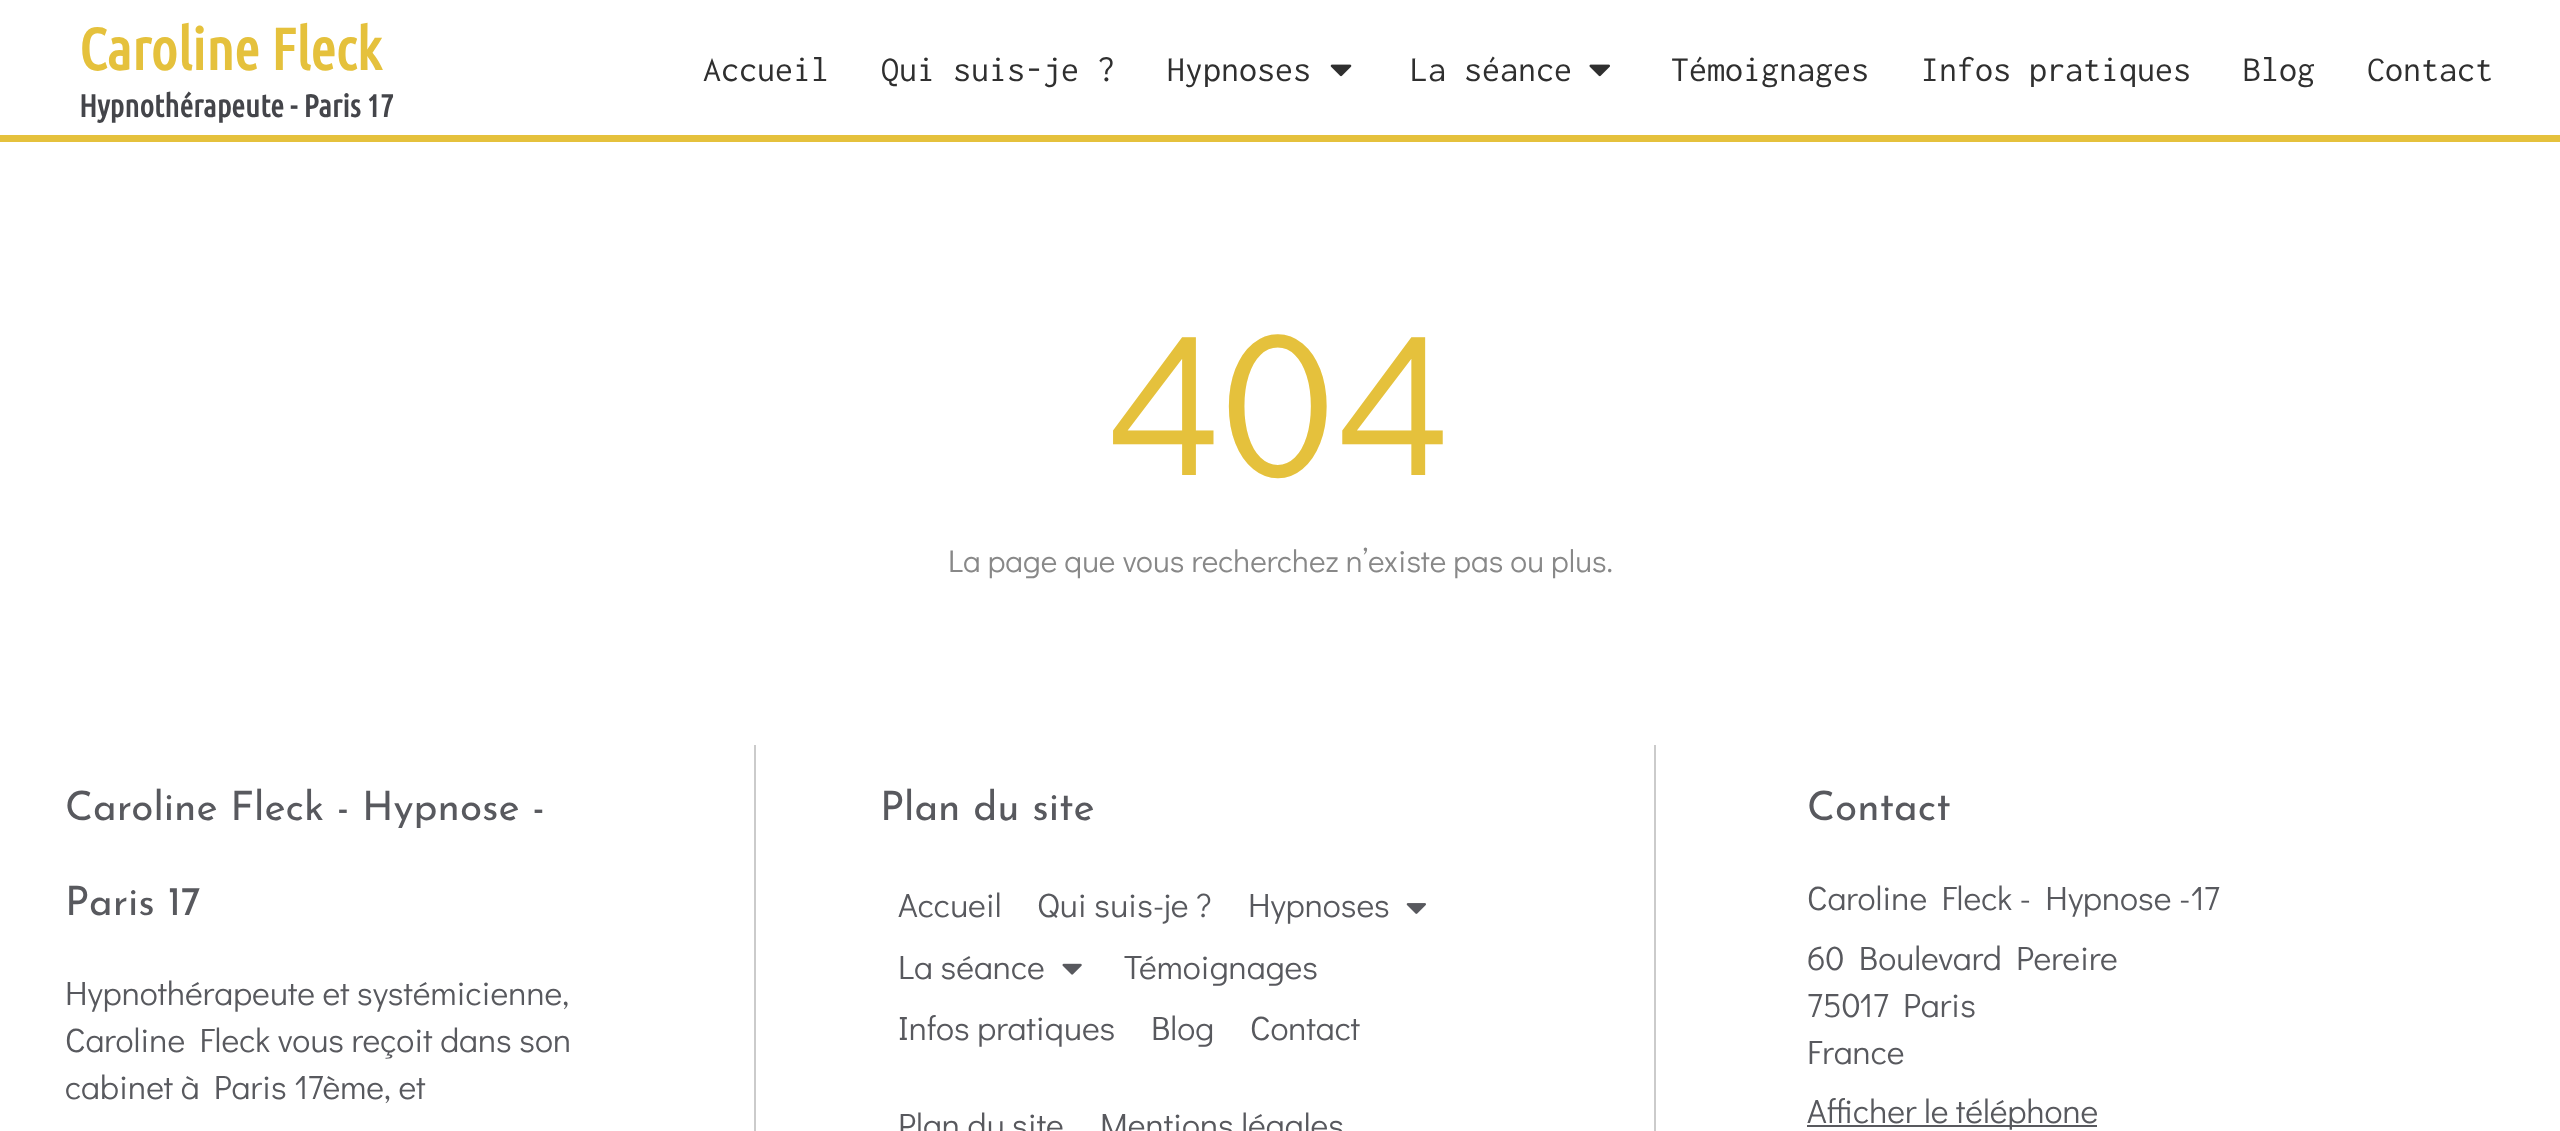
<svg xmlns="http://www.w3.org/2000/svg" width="2560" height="1131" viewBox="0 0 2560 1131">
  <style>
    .t1 { font: bold 58.5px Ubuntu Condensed; fill: #e5c13c; }
    .t2 { font: bold 31.5px Ubuntu Condensed; fill: #44454a; }
    .t3 { font: 36px Inconsolata; fill: #2f2f2f; }
    .t4 { font: 202px Didact Gothic; fill: #e5c13c; }
    .t5 { font: 31.5px Didact Gothic; fill: #888; }
    .t6 { font: 40.5px Josefin Sans; fill: #58595e; }
    .t7 { font: 33.75px Didact Gothic; fill: #58595e; }
  </style>
  <rect width="100%" height="100%" fill="#fff"/>
  <rect x="0" y="135" width="2560" height="7" fill="#e5c13c"/>
  <text x="79" y="70" class="t1">Caroline Fleck</text>
  <text x="79" y="117" class="t2">Hypnothérapeute - Paris 17</text>
  <text x="703" y="81" class="t3">Accueil</text>
  <text x="881" y="81" class="t3">Qui suis-je ?</text>
  <text x="1167" y="81" class="t3">Hypnoses</text>
  <image x="1330" y="64" width="22" height="13" href="images/1.png"/>
  <text x="1410" y="81" class="t3">La séance</text>
  <image x="1589" y="64" width="21" height="13" href="images/2.png"/>
  <text x="1671" y="81" class="t3">Témoignages</text>
  <text x="1921" y="81" class="t3">Infos pratiques</text>
  <text x="2243" y="81" class="t3">Blog</text>
  <text x="2367" y="81" class="t3">Contact</text>
  <text x="1107" y="475" class="t4">404</text>
  <text x="948" y="572" class="t5">La page que vous recherchez n’existe pas ou plus.</text>
  <text x="65" y="820" class="t6">Caroline Fleck - Hypnose -</text>
  <text x="65" y="915" class="t6">Paris 17</text>
  <text x="65" y="1005" class="t7">Hypnothérapeute et systémicienne,</text>
  <text x="65" y="1052" class="t7">Caroline Fleck vous reçoit dans son</text>
  <text x="65" y="1099" class="t7">cabinet à Paris 17ème, et</text>
  <rect x="754" y="745" width="2" height="386" fill="#cbcbcb"/>
  <text x="880" y="820" class="t6">Plan du site</text>
  <text x="898" y="917" class="t7">Accueil</text>
  <text x="1037" y="917" class="t7">Qui suis-je ?</text>
  <text x="1248" y="917" class="t7">Hypnoses</text>
  <image x="1406" y="903" width="20" height="11" href="images/3.png"/>
  <text x="898" y="979" class="t7">La séance</text>
  <image x="1062" y="963" width="20" height="12" href="images/4.png"/>
  <text x="1124" y="979" class="t7">Témoignages</text>
  <text x="898" y="1040" class="t7">Infos pratiques</text>
  <text x="1151" y="1040" class="t7">Blog</text>
  <text x="1250" y="1040" class="t7">Contact</text>
  <text x="898" y="1137" class="t7">Plan du site</text>
  <text x="1100" y="1137" class="t7">Mentions légales</text>
  <rect x="1654" y="745" width="2" height="386" fill="#cbcbcb"/>
  <text x="1807" y="820" class="t6">Contact</text>
  <text x="1807" y="910" class="t7">Caroline Fleck - Hypnose -17</text>
  <text x="1807" y="970" class="t7">60 Boulevard Pereire</text>
  <text x="1807" y="1017" class="t7">75017</text>
  <text x="1903" y="1017" class="t7">Paris</text>
  <text x="1807" y="1064" class="t7">France</text>
  <rect x="1807" y="1125" width="290" height="2" fill="#58595e"/>
  <text x="1807" y="1123" class="t7">Afficher le téléphone</text>
</svg>
